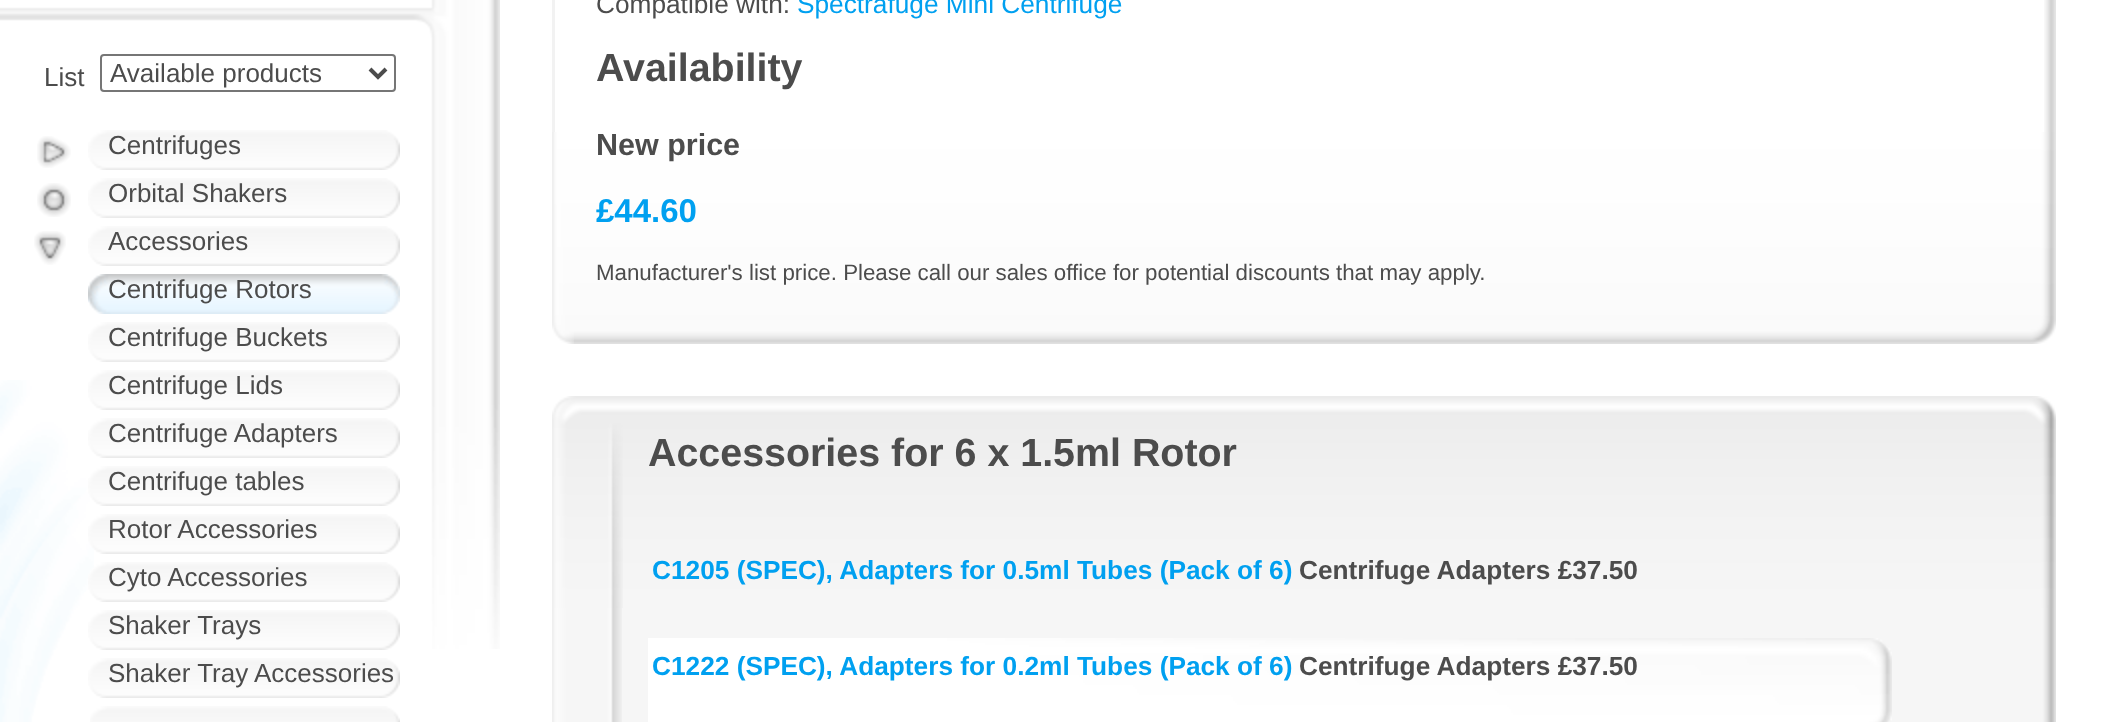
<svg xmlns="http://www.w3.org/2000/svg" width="2120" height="722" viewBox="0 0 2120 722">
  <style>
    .t1 { font: 26px Liberation Sans; fill: #4c4c4c; }
    .t2 { font: 26.25px Liberation Sans; fill: #4c4c4c; }
    .t3 { font: 26.25px Liberation Sans; fill: #00a0f0; }
    .t4 { font: bold 39.4px Liberation Sans; fill: #4c4c4c; }
    .t5 { font: bold 30.5px Liberation Sans; fill: #4c4c4c; }
    .t6 { font: bold 33px Liberation Sans; fill: #00a0f0; }
    .t7 { font: 22.3px Liberation Sans; fill: #4c4c4c; }
    .t8 { font: bold 26.25px Liberation Sans; fill: #00a0f0; }
    .t9 { font: bold 26.25px Liberation Sans; fill: #4c4c4c; }
  </style>
  <rect width="100%" height="100%" fill="#fff"/>
  <image x="0" y="380" width="94" height="342" href="images/1.png"/>
  <image x="0" y="0" width="500" height="649" href="images/2.png"/>
  <text x="44" y="86" class="t1">List</text>
  <rect x="101" y="55" width="294" height="36" rx="3" fill="none" stroke="#767676" stroke-width="2"/>
  <path d="M370 69L378 77L386 69" fill="none" stroke="#4c4c4c" stroke-width="4"/>
  <text x="110" y="82" class="t1">Available products</text>
  <image x="37" y="136" width="34" height="32" href="images/3.png"/>
  <image x="88" y="130" width="312" height="40" href="images/4.png"/>
  <text x="108" y="154" class="t1">Centrifuges</text>
  <image x="37" y="183" width="34" height="34" href="images/5.png"/>
  <image x="88" y="178" width="312" height="40" href="images/4.png"/>
  <text x="108" y="202" class="t1">Orbital Shakers</text>
  <image x="34" y="231" width="32" height="34" href="images/6.png"/>
  <image x="88" y="226" width="312" height="40" href="images/4.png"/>
  <text x="108" y="250" class="t1">Accessories</text>
  <image x="88" y="274" width="312" height="40" href="images/7.png"/>
  <text x="108" y="298" class="t1">Centrifuge Rotors</text>
  <image x="88" y="322" width="312" height="40" href="images/4.png"/>
  <text x="108" y="346" class="t1">Centrifuge Buckets</text>
  <image x="88" y="370" width="312" height="40" href="images/4.png"/>
  <text x="108" y="394" class="t1">Centrifuge Lids</text>
  <image x="88" y="418" width="312" height="40" href="images/4.png"/>
  <text x="108" y="442" class="t1">Centrifuge Adapters</text>
  <image x="88" y="466" width="312" height="40" href="images/8.png"/>
  <text x="108" y="490" class="t1">Centrifuge tables</text>
  <image x="88" y="514" width="312" height="40" href="images/9.png"/>
  <text x="108" y="538" class="t1">Rotor Accessories</text>
  <image x="88" y="562" width="312" height="40" href="images/10.png"/>
  <text x="108" y="586" class="t1">Cyto Accessories</text>
  <image x="88" y="610" width="312" height="40" href="images/4.png"/>
  <text x="108" y="634" class="t1">Shaker Trays</text>
  <image x="88" y="658" width="312" height="40" href="images/4.png"/>
  <text x="108" y="682" class="t1">Shaker Tray Accessories</text>
  <image x="90" y="706" width="310" height="16" href="images/11.png"/>
  <image x="2044" y="0" width="12" height="132" href="images/12.png"/>
  <rect x="552" y="0" width="3" height="132" fill="#f2f2f2"/>
  <image x="574" y="132" width="1482" height="212" href="images/13.png"/>
  <image x="552" y="132" width="22" height="212" href="images/14.png"/>
  <text x="596" y="13" class="t2">Compatible with:</text>
  <text x="797" y="13" class="t3">Spectrafuge Mini Centrifuge</text>
  <text x="596" y="81" class="t4">Availability</text>
  <text x="596" y="155" class="t5">New price</text>
  <text x="596" y="222" class="t6">£44.60</text>
  <text x="596" y="280" class="t7">Manufacturer's list price. Please call our sales office for potential discounts that may apply.</text>
  <image x="622" y="608" width="1434" height="114" href="images/15.png"/>
  <image x="552" y="608" width="70" height="114" href="images/16.png"/>
  <image x="623" y="396" width="1433" height="212" href="images/17.png"/>
  <image x="552" y="396" width="71" height="212" href="images/18.png"/>
  <text x="648" y="466" class="t4">Accessories for 6 x 1.5ml Rotor</text>
  <text x="652" y="579" class="t8">C1205 (SPEC), Adapters for 0.5ml Tubes (Pack of 6)</text>
  <text x="1299" y="579" class="t9">Centrifuge Adapters £37.50</text>
  <image x="648" y="638" width="1244" height="84" href="images/19.png"/>
  <text x="652" y="675" class="t8">C1222 (SPEC), Adapters for 0.2ml Tubes (Pack of 6)</text>
  <text x="1299" y="675" class="t9">Centrifuge Adapters £37.50</text>
</svg>
